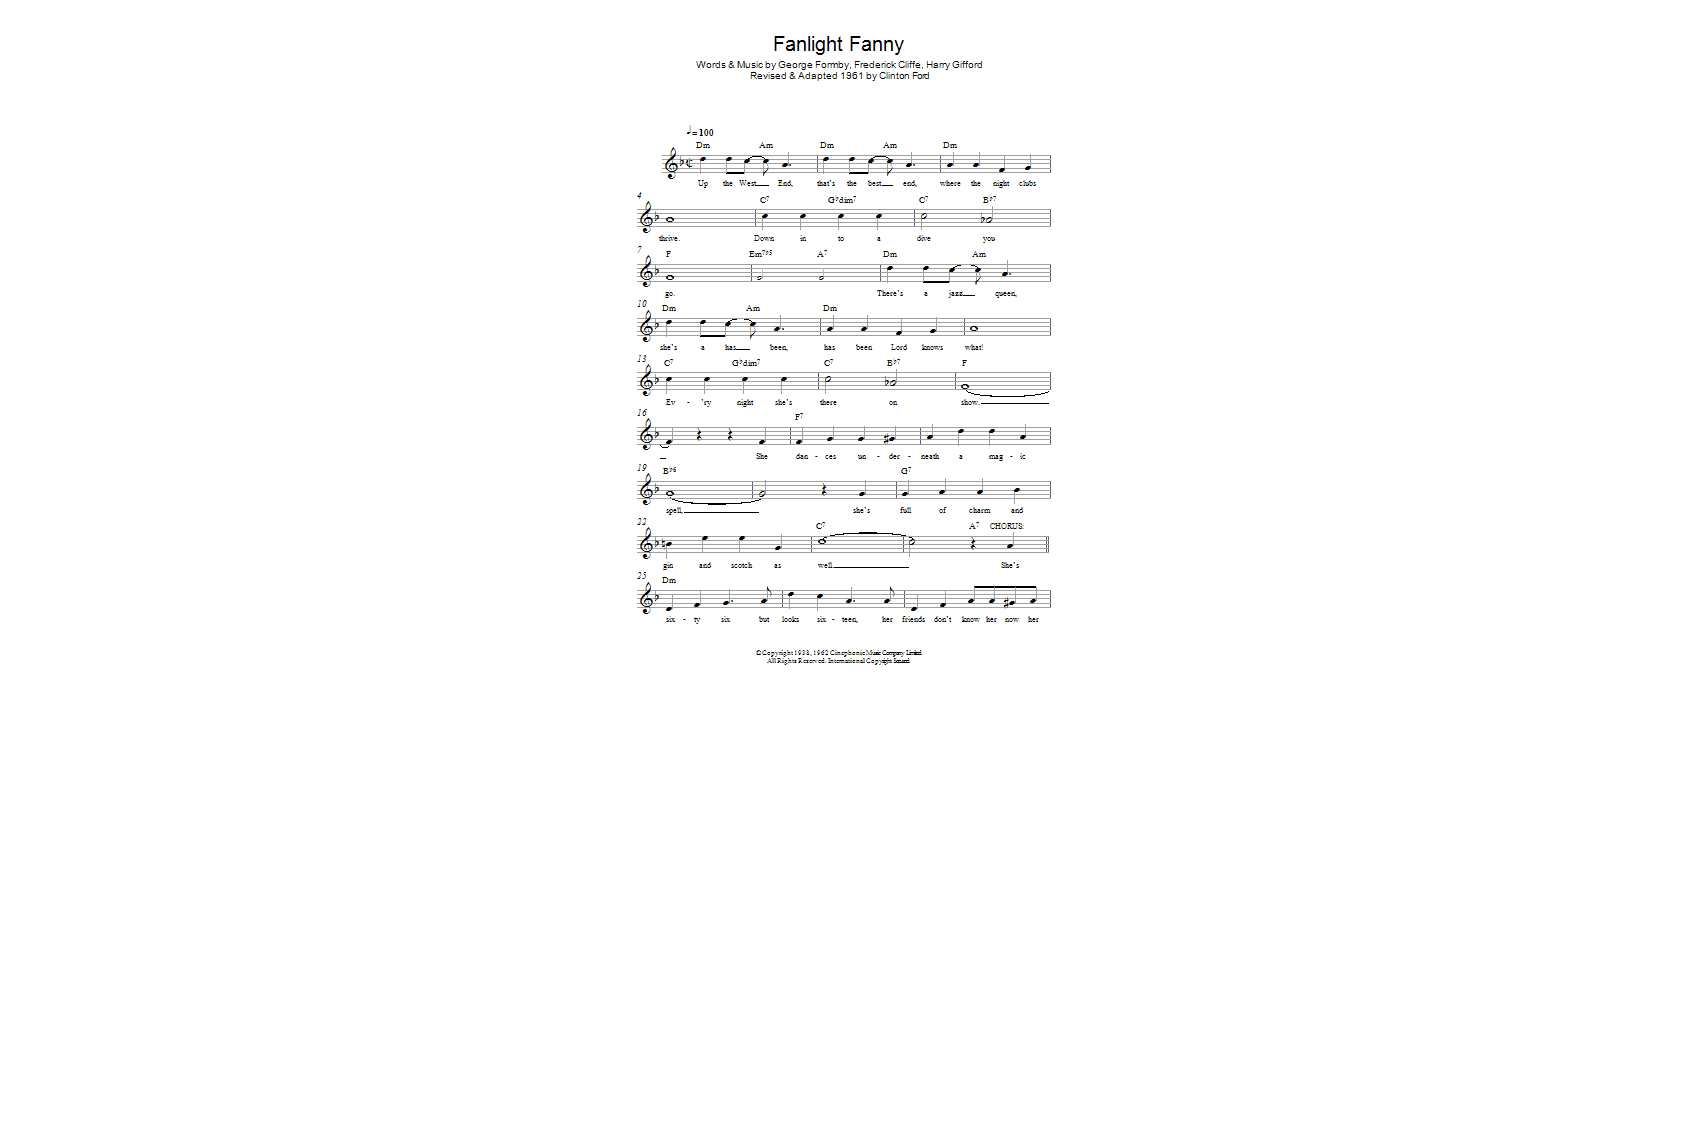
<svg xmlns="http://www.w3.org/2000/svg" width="1682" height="1123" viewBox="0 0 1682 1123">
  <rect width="100%" height="100%" fill="#fff"/>
  <image x="637" y="36" width="414" height="629" href="images/1.png"/>
</svg>
